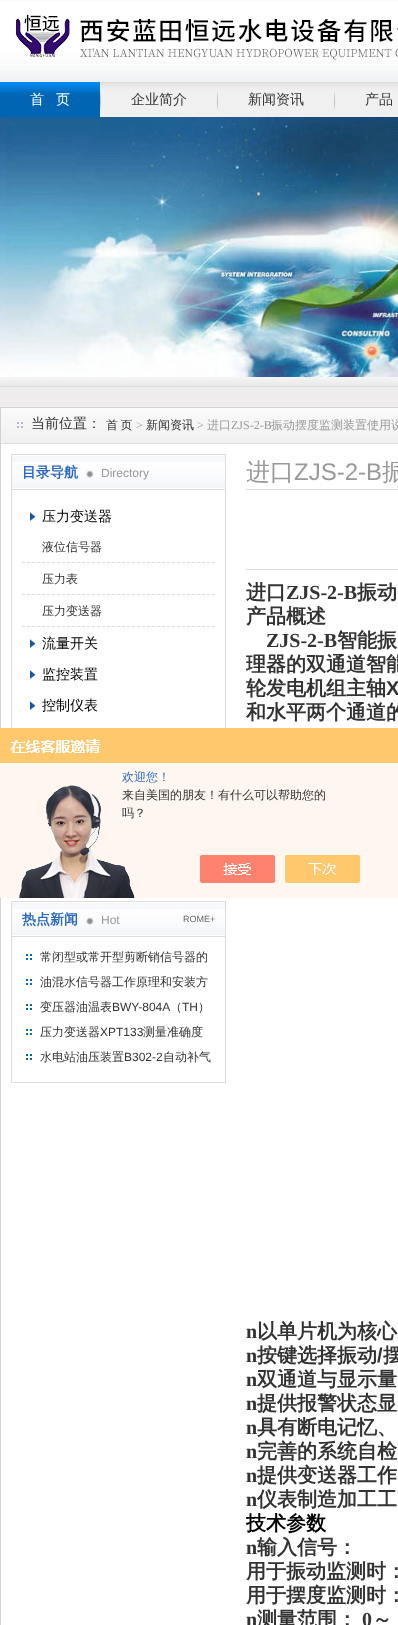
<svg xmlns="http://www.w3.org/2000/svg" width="398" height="1625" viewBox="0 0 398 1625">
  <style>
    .t1 { font: 500 14px WenQuanYi Zen Hei; fill: #fff; }
    .t2 { font: 500 14px WenQuanYi Zen Hei; fill: #333; }
    .t3 { font: 500 12px WenQuanYi Zen Hei; fill: #333; }
    .t4 { font: 12px Liberation Serif; fill: #999; }
    .t5 { font: 500 12px WenQuanYi Zen Hei; fill: #999; }
    .t6 { font: bold 14px WenQuanYi Zen Hei; fill: #2a67c0; }
    .t7 { font: 12px Liberation Sans; fill: #999; }
    .t8 { font: 500 14px WenQuanYi Zen Hei; fill: #000; }
    .t9 { font: 9px Liberation Sans; fill: #666; }
    .t10 { font: 12px Liberation Sans; fill: #333; }
    .t11 { font: 500 24px WenQuanYi Zen Hei; fill: #999; }
    .t12 { font: 24px Liberation Sans; fill: #999; }
    .t13 { font: bold 20px WenQuanYi Zen Hei; fill: #333; }
    .t14 { font: bold 20px Liberation Serif; fill: #333; }
    .t15 { font: bold 20px Liberation Sans; fill: #333; }
    .t16 { font: bold 20px WenQuanYi Zen Hei; fill: #000; }
    .t17 { font: 500 12px WenQuanYi Zen Hei; fill: #2e6ec6; }
  </style>
  <rect width="100%" height="100%" fill="#eeeced"/>
  <image x="0" y="0" width="398" height="387" href="images/1.png"/>
  <image x="16" y="15" width="382" height="45" href="images/2.png"/>
  <image x="100" y="91" width="1" height="26" href="images/3.png"/>
  <image x="0" y="82" width="100" height="35" href="images/4.png"/>
  <text x="30" y="104" class="t1">首</text>
  <text x="56" y="104" class="t1">页</text>
  <image x="217" y="91" width="1" height="26" href="images/3.png"/>
  <text x="131" y="104" class="t2">企业简介</text>
  <image x="334" y="91" width="1" height="26" href="images/3.png"/>
  <text x="248" y="104" class="t2">新闻资讯</text>
  <text x="365" y="104" class="t2">产品</text>
  <image x="0" y="117" width="398" height="260" href="images/5.png"/>
  <rect x="1" y="444" width="397" height="1181" fill="#fff"/>
  <rect x="0.5" y="407.5" width="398" height="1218" fill="none" stroke="#d2d2d2"/>
  <image x="1" y="408" width="397" height="35" href="images/6.png"/>
  <rect x="1" y="443" width="397" height="1" fill="#ddd"/>
  <image x="13" y="416" width="15" height="16" href="images/7.png"/>
  <text x="31" y="428" class="t2">当前位置：</text>
  <text x="106" y="429" word-spacing="-1" class="t3">首 页</text>
  <text x="136" y="429" class="t4">&gt;</text>
  <text x="146" y="429" class="t3">新闻资讯</text>
  <text x="197" y="429" class="t4">&gt;</text>
  <text x="207" y="429" class="t5">进口</text>
  <text x="231" y="429" class="t4">ZJS-2-B</text>
  <text x="271" y="429" class="t5">振动摆度监测装置使用说</text>
  <image x="12" y="456" width="213" height="32" href="images/8.png"/>
  <rect x="11.5" y="454.5" width="214" height="431" fill="none" stroke="#ddd"/>
  <image x="86" y="470" width="8" height="8" href="images/9.png"/>
  <text x="22" y="477" class="t6">目录导航</text>
  <text x="101" y="477" class="t7">Directory</text>
  <rect x="12" y="489" width="213" height="1" fill="#ddd"/>
  <image x="30" y="512" width="5" height="9" href="images/10.png"/>
  <text x="42" y="521" class="t8">压力变送器</text>
  <path d="M22 562.5H215" fill="none" stroke="#ddd" stroke-dasharray="3 2"/>
  <text x="42" y="551" class="t3">液位信号器</text>
  <path d="M22 594.5H215" fill="none" stroke="#ddd" stroke-dasharray="3 2"/>
  <text x="42" y="583" class="t3">压力表</text>
  <path d="M22 626.5H215" fill="none" stroke="#ddd" stroke-dasharray="3 2"/>
  <text x="42" y="615" class="t3">压力变送器</text>
  <image x="30" y="639" width="5" height="9" href="images/10.png"/>
  <text x="42" y="648" class="t8">流量开关</text>
  <image x="30" y="670" width="5" height="9" href="images/10.png"/>
  <text x="42" y="679" class="t8">监控装置</text>
  <image x="30" y="701" width="5" height="9" href="images/10.png"/>
  <text x="42" y="710" class="t8">控制仪表</text>
  <image x="12" y="903" width="213" height="32" href="images/8.png"/>
  <rect x="11.5" y="901.5" width="214" height="181" fill="none" stroke="#ddd"/>
  <image x="86" y="917" width="8" height="8" href="images/9.png"/>
  <text x="22" y="924" class="t6">热点新闻</text>
  <text x="101" y="924" class="t7">Hot</text>
  <text x="183" y="922" class="t9">ROME+</text>
  <rect x="12" y="936" width="213" height="1" fill="#ddd"/>
  <image x="26" y="954" width="6" height="6" href="images/11.png"/>
  <text x="40" y="961" class="t3">常闭型或常开型剪断销信号器的</text>
  <image x="26" y="979" width="6" height="6" href="images/11.png"/>
  <text x="40" y="986" class="t3">油混水信号器工作原理和安装方</text>
  <image x="26" y="1004" width="6" height="6" href="images/11.png"/>
  <text x="40" y="1011" class="t3">变压器油温表</text>
  <text x="112" y="1011" class="t10">BWY-804A</text>
  <text x="170" y="1011" class="t3">（</text>
  <text x="182" y="1011" class="t10">TH</text>
  <text x="198" y="1011" class="t3">）</text>
  <image x="26" y="1029" width="6" height="6" href="images/11.png"/>
  <text x="40" y="1036" class="t3">压力变送器</text>
  <text x="100" y="1036" class="t10">XPT133</text>
  <text x="143" y="1036" class="t3">测量准确度</text>
  <image x="26" y="1054" width="6" height="6" href="images/11.png"/>
  <text x="40" y="1061" class="t3">水电站油压装置</text>
  <text x="124" y="1061" class="t10">B302-2</text>
  <text x="163" y="1061" class="t3">自动补气</text>
  <rect x="246" y="489" width="152" height="1" fill="#ddd"/>
  <text x="246" y="480" class="t11">进口</text>
  <text x="294" y="480" class="t12">ZJS-2-B</text>
  <text x="382" y="480" class="t11">振</text>
  <rect x="246" y="569" width="152" height="1" fill="#ddd"/>
  <text x="246" y="599" class="t13">进口</text>
  <text x="286" y="599" class="t14">ZJS-2-B</text>
  <text x="357" y="599" class="t13">振动</text>
  <text x="246" y="623" class="t13">产品概述</text>
  <text x="266" y="647" class="t14">ZJS-2-B</text>
  <text x="337" y="647" class="t13">智能振</text>
  <text x="246" y="671" class="t13">理器的双通道智能</text>
  <text x="246" y="695" class="t13">轮发电机组主轴</text>
  <text x="386" y="695" class="t15">X</text>
  <text x="246" y="719" class="t13">和水平两个通道的</text>
  <text x="246" y="1338" class="t14">n</text>
  <text x="257" y="1338" class="t13">以单片机为核心</text>
  <text x="246" y="1362" class="t14">n</text>
  <text x="257" y="1362" class="t13">按键选择振动</text>
  <text x="377" y="1362" class="t15">/</text>
  <text x="383" y="1362" class="t13">摆</text>
  <text x="246" y="1386" class="t14">n</text>
  <text x="257" y="1386" class="t13">双通道与显示量</text>
  <text x="246" y="1410" class="t14">n</text>
  <text x="257" y="1410" class="t13">提供报警状态显</text>
  <text x="246" y="1434" class="t14">n</text>
  <text x="257" y="1434" class="t13">具有断电记忆、</text>
  <text x="246" y="1458" class="t14">n</text>
  <text x="257" y="1458" class="t13">完善的系统自检</text>
  <text x="246" y="1482" class="t14">n</text>
  <text x="257" y="1482" class="t13">提供变送器工作</text>
  <text x="246" y="1506" class="t14">n</text>
  <text x="257" y="1506" class="t13">仪表制造加工工</text>
  <text x="246" y="1530" class="t16">技术参数</text>
  <text x="246" y="1554" class="t14">n</text>
  <text x="257" y="1554" class="t13">输入信号：</text>
  <text x="246" y="1578" class="t13">用于振动监测时：</text>
  <text x="246" y="1602" class="t13">用于摆度监测时：</text>
  <text x="246" y="1626" class="t14">n</text>
  <text x="257" y="1626" class="t13">测量范围：</text>
  <text x="362" y="1626" class="t14">0</text>
  <text x="372" y="1626" class="t13">～</text>
  <image x="0" y="728" width="398" height="170" href="images/12.png"/>
  <text x="122" y="781" class="t17">欢迎您！</text>
  <text x="122" y="799" class="t3">来自美国的朋友！有什么可以帮助您的</text>
  <text x="122" y="817" class="t3">吗？</text>
</svg>
